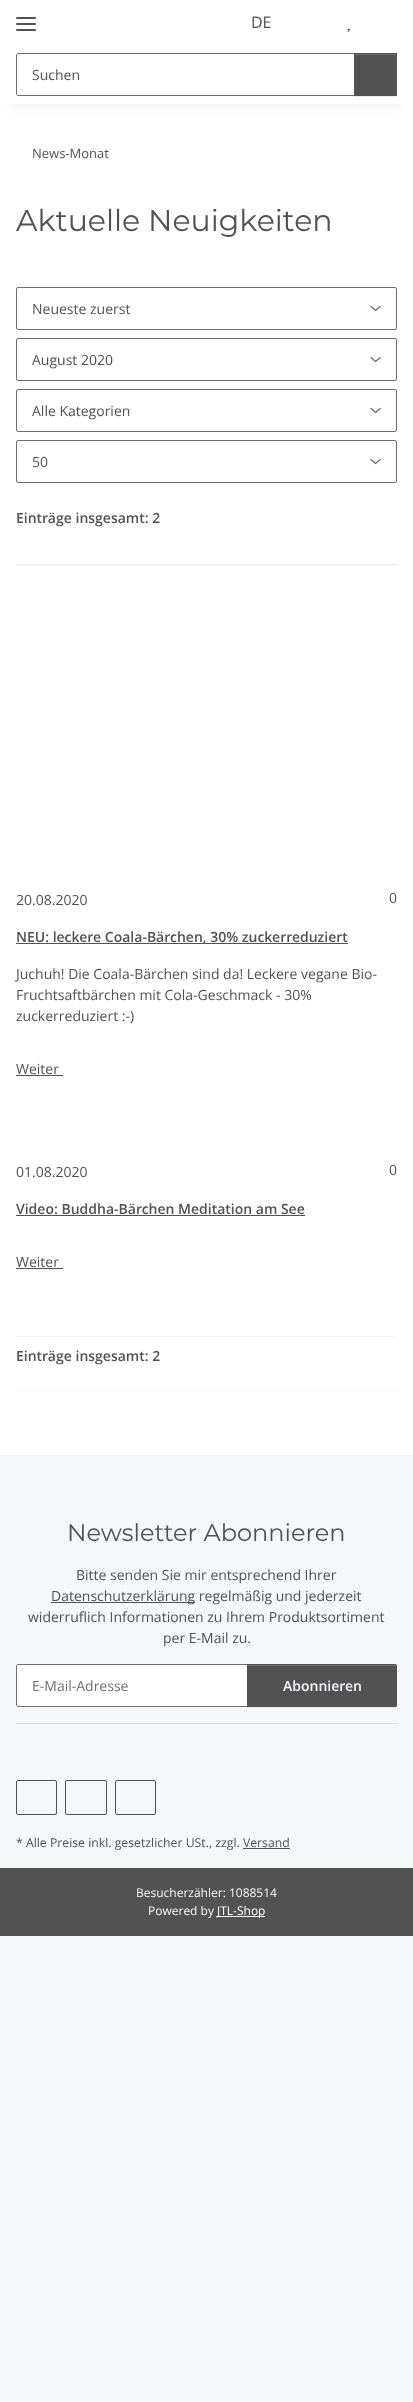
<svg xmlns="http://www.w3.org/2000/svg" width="413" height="2402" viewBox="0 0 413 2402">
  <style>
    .t1 { font: 16px Open Sans; fill: #525252; }
    .t2 { font: 14px Open Sans; fill: #525252; }
    .t3 { font: 13px Open Sans; fill: #525252; }
    .t4 { font: 30px Montserrat; fill: #525252; }
    .t5 { font: 600 14px Open Sans; fill: #525252; }
    .t6 { font: 24px Montserrat; fill: #525252; }
    .t7 { font: 14px Open Sans; fill: #707070; }
    .t8 { font: 600 14px Open Sans; fill: #f5f7fa; }
    .t9 { font: 12.25px Open Sans; fill: #525252; }
    .t10 { font: 12px Open Sans; fill: #f5f7fa; }
    .t11 { font: 12px Open Sans; fill: #fff; }
  </style>
  <rect width="100%" height="100%" fill="#f5f7fa"/>
  <rect x="0" y="104" width="413" height="1351" fill="#fff"/>
  <rect x="12" y="28" width="389" height="80" fill="#0000000f" filter="blur(4.5px)"/>
  <rect x="0" y="0" width="413" height="104" fill="#fff"/>
  <rect x="16" y="23" width="20" height="2" rx="1" fill="#525252"/>
  <rect x="16" y="17" width="20" height="2" rx="1" fill="#525252"/>
  <rect x="16" y="29" width="20" height="2" rx="1" fill="#525252"/>
  <text x="251" y="28" class="t1">DE</text>
  <image x="347" y="28" width="3" height="4" href="images/1.png"/>
  <path d="M18 53.5H354.5V95.5H18C17 95.5 16.5 95 16.5 94V55C16.5 54 17 53.5 18 53.5Z" fill="none" stroke="#707070"/>
  <text x="32" y="80" class="t2">Suchen</text>
  <rect x="354" y="54" width="43" height="43" fill="#00000012" filter="blur(0.5px)"/>
  <rect x="354" y="53" width="43" height="43" fill="#525252"/>
  <rect x="355" y="54" width="41" height="1" fill="#6c6c6c"/>
  <text x="32" y="158" class="t3">News-Monat</text>
  <text x="16" y="231" class="t4">Aktuelle Neuigkeiten</text>
  <image x="370" y="305" width="11" height="7" href="images/2.png"/>
  <rect x="16.5" y="287.5" width="380" height="42" rx="1.5" fill="none" stroke="#707070"/>
  <text x="32" y="314" class="t2">Neueste zuerst</text>
  <image x="370" y="356" width="11" height="7" href="images/2.png"/>
  <rect x="16.5" y="338.5" width="380" height="42" rx="1.5" fill="none" stroke="#707070"/>
  <text x="32" y="365" class="t2">August 2020</text>
  <image x="370" y="407" width="11" height="7" href="images/2.png"/>
  <rect x="16.5" y="389.5" width="380" height="42" rx="1.5" fill="none" stroke="#707070"/>
  <text x="32" y="416" class="t2">Alle Kategorien</text>
  <image x="370" y="458" width="11" height="7" href="images/2.png"/>
  <rect x="16.5" y="440.5" width="380" height="42" rx="1.5" fill="none" stroke="#707070"/>
  <text x="32" y="467" class="t2">50</text>
  <text x="16" y="523" class="t5">Einträge insgesamt: 2</text>
  <rect x="16" y="564" width="381" height="1" fill="#e6e6e6"/>
  <text x="16" y="905" class="t2">20.08.2020</text>
  <text x="389" y="903" class="t2">0</text>
  <rect x="16" y="943" width="332" height="1" fill="#525252"/>
  <text x="16" y="942" class="t5">NEU: leckere Coala-Bärchen, 30% zuckerreduziert</text>
  <text x="16" y="979" class="t2">Juchuh! Die Coala-Bärchen sind da! Leckere vegane Bio-</text>
  <text x="16" y="1000" class="t2">Fruchtsaftbärchen mit Cola-Geschmack - 30%</text>
  <text x="16" y="1021" class="t2">zuckerreduziert :-)</text>
  <text x="16" y="1074" class="t2">Weiter</text>
  <rect x="16" y="1075" width="47" height="1" fill="#525252"/>
  <text x="16" y="1177" class="t2">01.08.2020</text>
  <text x="389" y="1175" class="t2">0</text>
  <text x="16" y="1214" class="t5">Video: Buddha-Bärchen Meditation am See</text>
  <rect x="16" y="1215" width="289" height="1" fill="#525252"/>
  <text x="16" y="1267" class="t2">Weiter</text>
  <rect x="16" y="1268" width="47" height="1" fill="#525252"/>
  <rect x="16" y="1336" width="381" height="1" fill="#f5f7fa"/>
  <rect x="16" y="1390" width="381" height="1" fill="#f5f7fa"/>
  <text x="16" y="1361" class="t5">Einträge insgesamt: 2</text>
  <text x="67" y="1541" class="t6">Newsletter Abonnieren</text>
  <text x="76" y="1580" class="t2">Bitte senden Sie mir entsprechend Ihrer</text>
  <rect x="51" y="1602" width="144" height="1" fill="#525252"/>
  <text x="51" y="1601" class="t2">Datenschutzerklärung regelmäßig und jederzeit</text>
  <text x="28" y="1622" class="t2">widerruflich Informationen zu Ihrem Produktsortiment</text>
  <text x="163" y="1643" class="t2">per E-Mail zu.</text>
  <path d="M18 1664.5H247.5V1706.5H18C17 1706.5 16.5 1706 16.5 1705V1666C16.5 1665 17 1664.5 18 1664.5Z" fill="#fff" stroke="#707070"/>
  <text x="32" y="1691" class="t7">E-Mail-Adresse</text>
  <rect x="247" y="1665" width="150" height="43" rx="2" fill="#00000012" filter="blur(0.5px)"/>
  <path d="M247 1664H395C396 1664 397 1665 397 1666V1705C397 1706 396 1707 395 1707H247Z" fill="#525252"/>
  <path d="M248 1666H395C396 1666 396 1666 396 1667V1665H248Z" fill="#6c6c6c"/>
  <path d="M247.5 1664.5H395C396 1664.5 396.5 1665 396.5 1666V1705C396.5 1706 396 1706.5 395 1706.5H247.5Z" fill="none" stroke="#525252"/>
  <text x="283" y="1691" class="t8">Abonnieren</text>
  <rect x="16" y="1723" width="381" height="1" fill="#dddee1"/>
  <rect x="16.5" y="1780.5" width="40" height="34" rx="1.5" fill="none" stroke="#525252"/>
  <rect x="65.5" y="1780.5" width="41" height="34" rx="1.5" fill="none" stroke="#525252"/>
  <rect x="115.5" y="1780.5" width="40" height="34" rx="1.5" fill="none" stroke="#525252"/>
  <text x="16" y="1847" class="t9">* Alle Preise inkl. gesetzlicher USt., zzgl. Versand</text>
  <rect x="243" y="1848" width="47" height="1" fill="#525252"/>
  <rect x="0" y="1868" width="413" height="68" fill="#525252"/>
  <text x="136" y="1897" class="t10">Besucherzähler: 1088514</text>
  <text x="148" y="1915" class="t10">Powered by</text>
  <rect x="217" y="1916" width="48" height="1" fill="#fff"/>
  <text x="217" y="1915" class="t11">JTL-Shop</text>
</svg>
